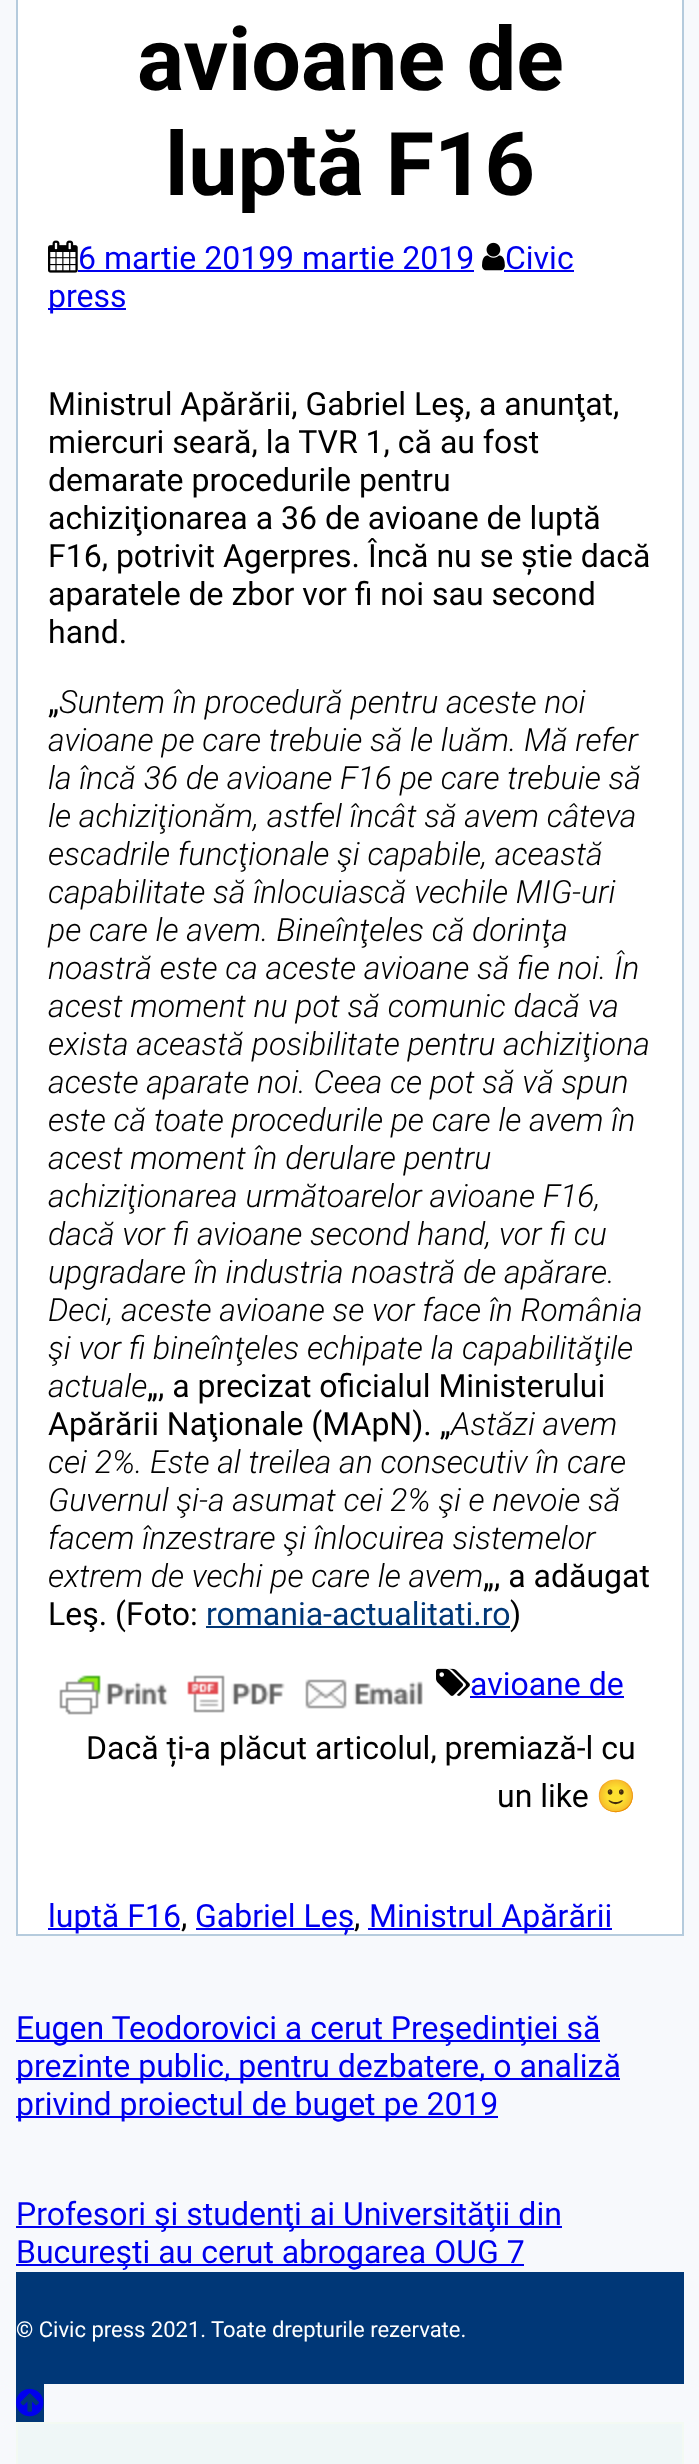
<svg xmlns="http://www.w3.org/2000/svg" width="699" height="2464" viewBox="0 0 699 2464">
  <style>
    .t1 { font: bold 88px Roboto; fill: #000; }
    .t2 { font: 32px Roboto; fill: #00e; }
    .t3 { font: 32px Roboto; fill: #000; }
    .t4 { font: italic 300 32px Roboto; fill: #000; }
    .t5 { font: 32px Roboto; fill: #003777; }
    .t6 { font: 32px Noto Color Emoji; fill: #000; }
    .t7 { font: 22px Roboto; fill: #fff; }
  </style>
  <rect width="100%" height="100%" fill="#f7f9fc"/>
  <rect x="17" y="-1" width="666" height="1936" fill="#fff" stroke="#b5cbdd" stroke-width="2"/>
  <text x="137" y="90" class="t1">avioane de</text>
  <text x="165" y="195" class="t1">luptă F16</text>
  <image x="482" y="242" width="23" height="29" href="images/1.png"/>
  <text x="505" y="269" class="t2">Civic</text>
  <rect x="504" y="270" width="70" height="2" fill="#00e"/>
  <rect x="48" y="308" width="78" height="2" fill="#00e"/>
  <text x="48" y="307" class="t2">press</text>
  <image x="48" y="240" width="30" height="33" href="images/2.png"/>
  <text x="78" y="269" class="t2">6 martie 20199 martie 2019</text>
  <rect x="78" y="270" width="396" height="2" fill="#00e"/>
  <text x="48" y="415" class="t3">Ministrul Apărării, Gabriel Leş, a anunţat,</text>
  <text x="48" y="453" class="t3">miercuri seară, la TVR 1, că au fost</text>
  <text x="48" y="491" class="t3">demarate procedurile pentru</text>
  <text x="48" y="529" class="t3">achiziţionarea a 36 de avioane de luptă</text>
  <text x="48" y="567" class="t3">F16, potrivit Agerpres. Încă nu se știe dacă</text>
  <text x="48" y="605" class="t3">aparatele de zbor vor fi noi sau second</text>
  <text x="48" y="643" class="t3">hand.</text>
  <text x="48" y="713" class="t3">„</text>
  <text x="59" y="713" class="t4">Suntem în procedură pentru aceste noi</text>
  <text x="48" y="751" class="t4">avioane pe care trebuie să le luăm. Mă refer</text>
  <text x="48" y="789" class="t4">la încă 36 de avioane F16 pe care trebuie să</text>
  <text x="48" y="827" class="t4">le achiziţionăm, astfel încât să avem câteva</text>
  <text x="48" y="865" class="t4">escadrile funcţionale şi capabile, această</text>
  <text x="48" y="903" class="t4">capabilitate să înlocuiască vechile MIG-uri</text>
  <text x="48" y="941" class="t4">pe care le avem. Bineînţeles că dorinţa</text>
  <text x="48" y="979" class="t4">noastră este ca aceste avioane să fie noi. În</text>
  <text x="48" y="1017" class="t4">acest moment nu pot să comunic dacă va</text>
  <text x="48" y="1055" class="t4">exista această posibilitate pentru achiziţiona</text>
  <text x="48" y="1093" class="t4">aceste aparate noi. Ceea ce pot să vă spun</text>
  <text x="48" y="1131" class="t4">este că toate procedurile pe care le avem în</text>
  <text x="48" y="1169" class="t4">acest moment în derulare pentru</text>
  <text x="48" y="1207" class="t4">achiziţionarea următoarelor avioane F16,</text>
  <text x="48" y="1245" class="t4">dacă vor fi avioane second hand, vor fi cu</text>
  <text x="48" y="1283" class="t4">upgradare în industria noastră de apărare.</text>
  <text x="48" y="1321" class="t4">Deci, aceste avioane se vor face în România</text>
  <text x="48" y="1359" class="t4">şi vor fi bineînţeles echipate la capabilităţile</text>
  <text x="48" y="1397" class="t4">actuale</text>
  <text x="147" y="1397" class="t3">„, a precizat oficialul Ministerului</text>
  <text x="48" y="1435" class="t3">Apărării Naţionale (MApN). „</text>
  <text x="451" y="1435" class="t4">Astăzi avem</text>
  <text x="48" y="1473" class="t4">cei 2%. Este al treilea an consecutiv în care</text>
  <text x="48" y="1511" class="t4">Guvernul şi-a asumat cei 2% şi e nevoie să</text>
  <text x="48" y="1549" class="t4">facem înzestrare şi înlocuirea sistemelor</text>
  <text x="48" y="1587" class="t4">extrem de vechi pe care le avem</text>
  <text x="483" y="1587" class="t3">„, a adăugat</text>
  <text x="48" y="1625" class="t3">Leş. (Foto:</text>
  <text x="206" y="1625" class="t5">romania-actualitati.ro</text>
  <rect x="206" y="1626" width="304" height="2" fill="#003777"/>
  <text x="510" y="1625" class="t3">)</text>
  <image x="59" y="1675" width="364" height="40" href="images/3.png"/>
  <text x="86" y="1759" class="t3">Dacă ți-a plăcut articolul, premiază-l cu</text>
  <text x="497" y="1807" class="t3">un like</text>
  <text x="596" y="1807" class="t6">🙂</text>
  <image x="436" y="1668" width="34" height="28" href="images/4.png"/>
  <text x="470" y="1695" class="t2">avioane de</text>
  <rect x="470" y="1696" width="154" height="2" fill="#00e"/>
  <rect x="48" y="1928" width="132" height="2" fill="#00e"/>
  <text x="48" y="1927" class="t2">luptă F16</text>
  <text x="181" y="1927" class="t3">,</text>
  <rect x="196" y="1928" width="158" height="2" fill="#00e"/>
  <text x="195" y="1927" class="t2">Gabriel Leș</text>
  <text x="354" y="1927" class="t3">,</text>
  <rect x="368" y="1928" width="244" height="2" fill="#00e"/>
  <text x="369" y="1927" class="t2">Ministrul Apărării</text>
  <rect x="16" y="2040" width="584" height="2" fill="#00e"/>
  <text x="16" y="2039" class="t2">Eugen Teodorovici a cerut Preşedinţiei să</text>
  <rect x="16" y="2078" width="604" height="2" fill="#00e"/>
  <text x="16" y="2077" class="t2">prezinte public, pentru dezbatere, o analiză</text>
  <rect x="16" y="2116" width="482" height="2" fill="#00e"/>
  <text x="16" y="2115" class="t2">privind proiectul de buget pe 2019</text>
  <rect x="16" y="2226" width="546" height="2" fill="#00e"/>
  <text x="16" y="2225" class="t2">Profesori şi studenţi ai Universităţii din</text>
  <rect x="16" y="2264" width="508" height="2" fill="#00e"/>
  <text x="16" y="2263" class="t2">Bucureşti au cerut abrogarea OUG 7</text>
  <rect x="16" y="2272" width="668" height="112" fill="#003777"/>
  <text x="16" y="2337" class="t7">© Civic press 2021.</text>
  <text x="211" y="2337" class="t7">Toate drepturile rezervate.</text>
  <rect x="16" y="2384" width="28" height="38" fill="#003777"/>
  <image x="16" y="2388" width="28" height="29" href="images/5.png"/>
  <rect x="17" y="2423" width="666" height="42" fill="#eff7f7" stroke="#f3faf2" stroke-width="2"/>
</svg>
